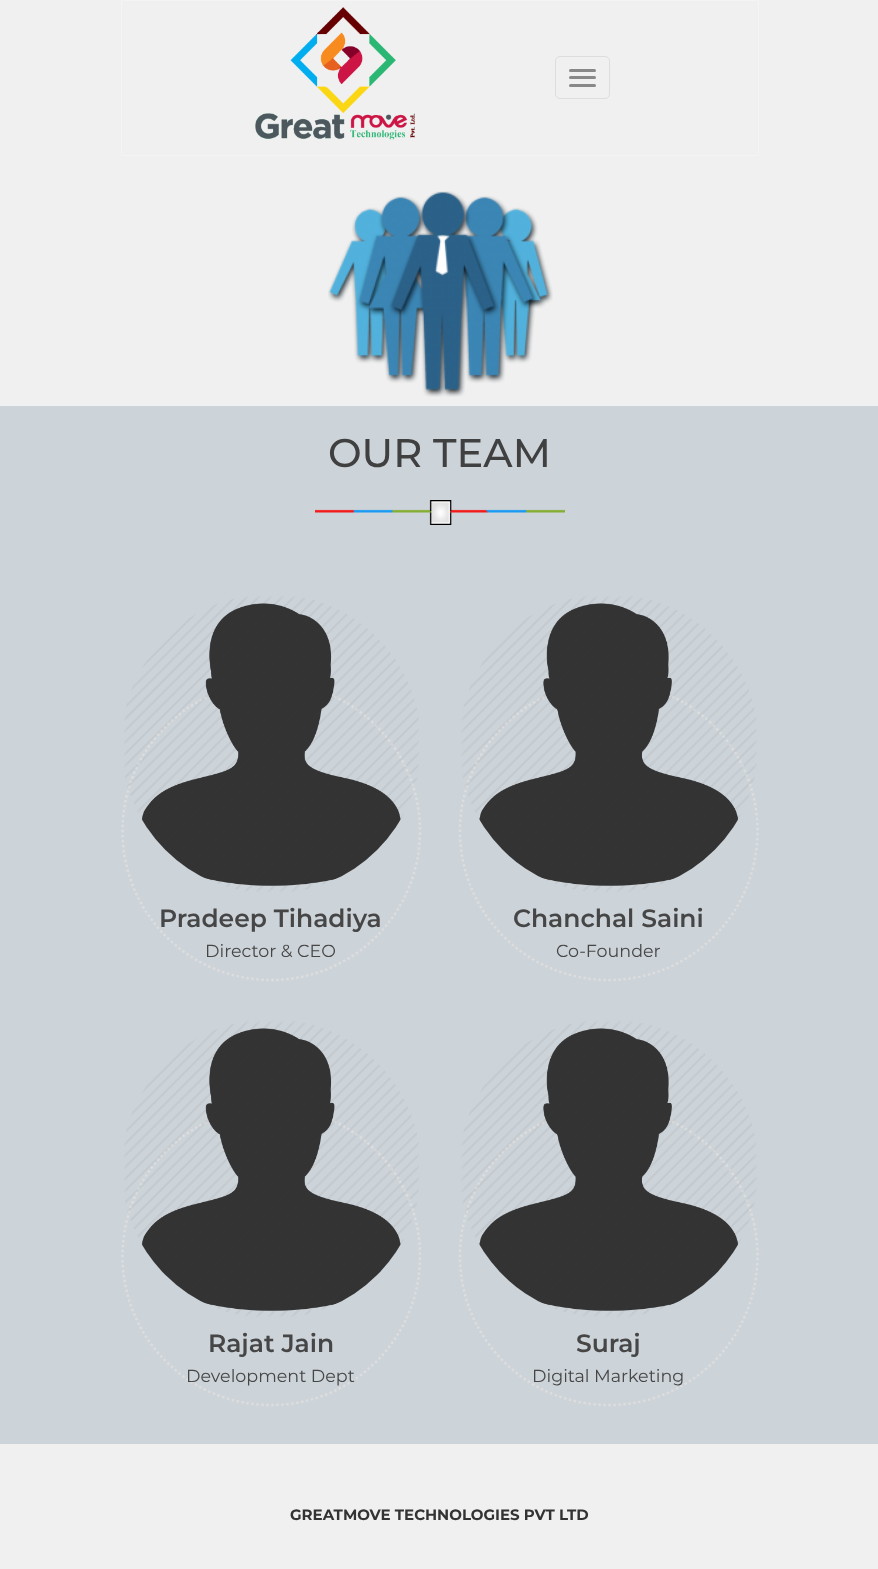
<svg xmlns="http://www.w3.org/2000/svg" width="878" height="1569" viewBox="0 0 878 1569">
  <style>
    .t1 { font: 500 40px Montserrat; fill: #404041; }
    .t2 { font: 600 25px Montserrat; fill: #464646; }
    .t3 { font: 17.5px Montserrat; fill: #464646; }
    .t4 { font: bold 15px Montserrat; fill: #333; }
  </style>
  <rect width="100%" height="100%" fill="#f0f0f0"/>
  <rect x="121.5" y="0.5" width="637" height="155" fill="none" stroke="#f4f4f4"/>
  <image x="255" y="7" width="160" height="133" href="images/1.png"/>
  <rect x="555.5" y="56.5" width="54" height="42" rx="4.5" fill="none" stroke="#ddd"/>
  <rect x="569" y="69" width="27" height="3" rx="1.5" fill="#888"/>
  <rect x="569" y="76" width="27" height="3" rx="1.5" fill="#888"/>
  <rect x="569" y="84" width="27" height="3" rx="1.5" fill="#888"/>
  <image x="328" y="191" width="225" height="206" href="images/2.png"/>
  <rect x="0" y="406" width="878" height="1038" fill="#ccd3d9"/>
  <text x="328" y="467" class="t1">OUR TEAM</text>
  <image x="315" y="500" width="250" height="25" href="images/3.png"/>
  <path d="M271 682.5C353.5 682.5 420 749 420 831C420 913.5 353.5 980 271 980C189 980 122.5 913.5 122.5 831C122.5 749 189 682.5 271 682.5Z" fill="none" stroke="#ddd" stroke-width="2.5" stroke-dasharray="2.5 2.5"/>
  <image x="124" y="596" width="295" height="296" href="images/4.png"/>
  <text x="159" y="927" class="t2">Pradeep Tihadiya</text>
  <text x="205" y="957" class="t3">Director &amp; CEO</text>
  <path d="M609 682.5C691 682.5 757.5 749 757.5 831C757.5 913.5 691 980 609 980C526.5 980 460 913.5 460 831C460 749 526.5 682.5 609 682.5Z" fill="none" stroke="#ddd" stroke-width="2.5" stroke-dasharray="2.5 2.5"/>
  <image x="461" y="596" width="296" height="296" href="images/5.png"/>
  <text x="513" y="927" class="t2">Chanchal Saini</text>
  <text x="556" y="957" class="t3">Co-Founder</text>
  <path d="M271 1107.5C353.5 1107.5 420 1174 420 1256C420 1338.5 353.5 1405 271 1405C189 1405 122.5 1338.5 122.5 1256C122.5 1174 189 1107.5 271 1107.5Z" fill="none" stroke="#ddd" stroke-width="2.5" stroke-dasharray="2.5 2.5"/>
  <image x="124" y="1021" width="295" height="296" href="images/6.png"/>
  <text x="208" y="1352" class="t2">Rajat Jain</text>
  <text x="186" y="1382" class="t3">Development Dept</text>
  <path d="M609 1107.5C691 1107.5 757.5 1174 757.5 1256C757.5 1338.5 691 1405 609 1405C526.5 1405 460 1338.5 460 1256C460 1174 526.5 1107.5 609 1107.5Z" fill="none" stroke="#ddd" stroke-width="2.5" stroke-dasharray="2.5 2.5"/>
  <image x="461" y="1021" width="296" height="296" href="images/7.png"/>
  <text x="576" y="1352" class="t2">Suraj</text>
  <text x="532" y="1382" class="t3">Digital Marketing</text>
  <text x="290" y="1520" class="t4">GREATMOVE TECHNOLOGIES PVT LTD</text>
</svg>
